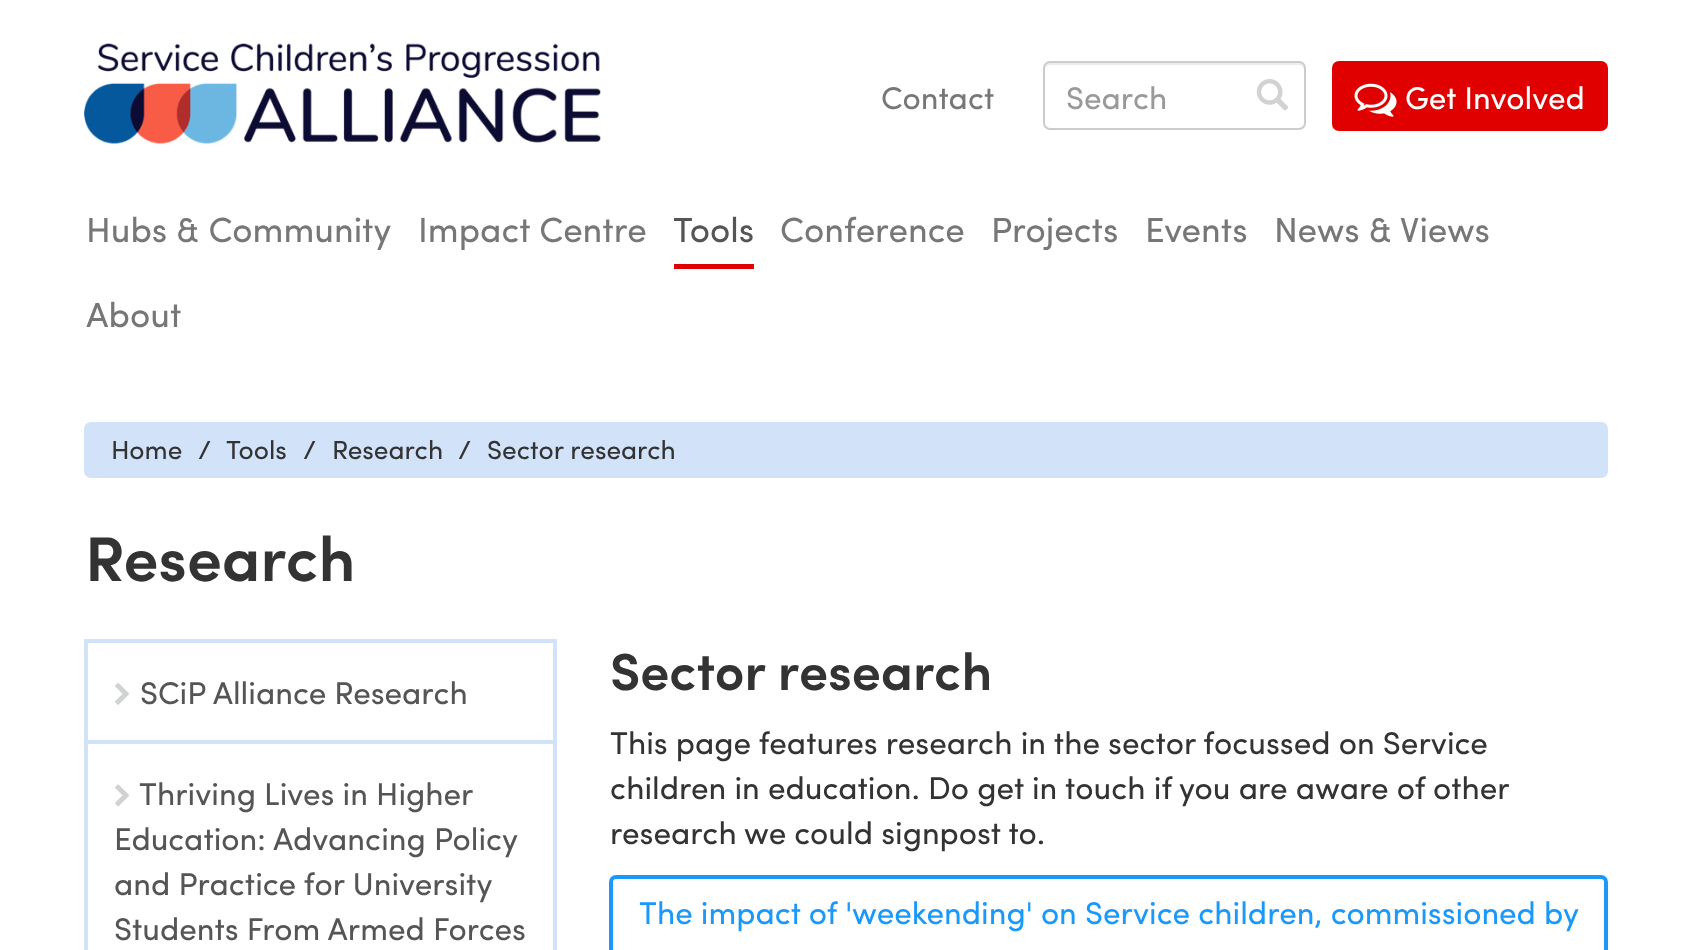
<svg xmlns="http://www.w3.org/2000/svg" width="1691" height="950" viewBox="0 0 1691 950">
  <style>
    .t1 { font: 31.5px Sofia; fill: #777; }
    .t2 { font: 31.5px Sofia; fill: #999; }
    .t3 { font: 31.5px Sofia; fill: #fff; }
    .t4 { font: 35px Sofia; fill: #777; }
    .t5 { font: 35px Sofia; fill: #555; }
    .t6 { font: 26.25px Sofia; fill: #333; }
    .t7 { font: 600 63px Sofia; fill: #333; }
    .t8 { font: 31.5px Sofia; fill: #555; }
    .t9 { font: 600 52.5px Sofia; fill: #333; }
    .t10 { font: 31.5px Sofia; fill: #333; }
    .t11 { font: 31.5px Sofia; fill: #1a99fa; }
  </style>
  <rect width="100%" height="100%" fill="#fff"/>
  <image x="84" y="43" width="517" height="101" href="images/1.png"/>
  <text x="881" y="109" class="t1">Contact</text>
  <path d="M1050 65H1298C1301 65 1304 67 1304 70V68C1304 65 1302 63 1299 63H1050C1047 63 1045 65 1045 68V70C1045 67 1047 65 1050 65Z" fill="#ececec"/>
  <rect x="1044" y="62" width="261" height="67" rx="6" fill="none" stroke="#ccc" stroke-width="2"/>
  <text x="1066" y="109" class="t2">Search</text>
  <image x="1256" y="79" width="33" height="32" href="images/2.png"/>
  <rect x="1333" y="62" width="274" height="68" rx="6" fill="#e10000" stroke="#e10000" stroke-width="2"/>
  <image x="1354" y="83" width="43" height="34" href="images/3.png"/>
  <text x="1405" y="109" class="t3">Get Involved</text>
  <text x="86" y="242" class="t4">Hubs &amp; Community</text>
  <text x="418" y="242" class="t4">Impact Centre</text>
  <rect x="674" y="264" width="80" height="5" fill="#e10000"/>
  <text x="673" y="242" class="t5">Tools</text>
  <text x="780" y="242" class="t4">Conference</text>
  <text x="991" y="242" class="t4">Projects</text>
  <text x="1145" y="242" class="t4">Events</text>
  <text x="1274" y="242" class="t4">News &amp; Views</text>
  <text x="86" y="327" class="t4">About</text>
  <rect x="84" y="422" width="1524" height="56" rx="7" fill="#d2e2f9"/>
  <text x="111" y="459" class="t6">Home</text>
  <text x="198" y="459" class="t6">/</text>
  <text x="226" y="459" class="t6">Tools</text>
  <text x="303" y="459" class="t6">/</text>
  <text x="332" y="459" class="t6">Research</text>
  <text x="458" y="459" class="t6">/</text>
  <text x="487" y="459" class="t6">Sector research</text>
  <text x="85" y="581" class="t7">Research</text>
  <rect x="86" y="641" width="469" height="101" fill="none" stroke="#d2e2f9" stroke-width="4"/>
  <image x="115" y="683" width="14" height="22" href="images/4.png"/>
  <text x="140" y="704" class="t8">SCiP Alliance Research</text>
  <rect x="86" y="742" width="469" height="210" fill="none" stroke="#d2e2f9" stroke-width="4"/>
  <image x="115" y="784" width="14" height="23" href="images/5.png"/>
  <text x="139" y="805" class="t8">Thriving Lives in Higher</text>
  <text x="114" y="850" class="t8">Education: Advancing Policy</text>
  <text x="114" y="895" class="t8">and Practice for University</text>
  <text x="114" y="940" class="t8">Students From Armed Forces</text>
  <text x="610" y="690" class="t9">Sector research</text>
  <text x="610" y="754" class="t10">This page features research in the sector focussed on Service</text>
  <text x="610" y="799" class="t10">children in education. Do get in touch if you are aware of other</text>
  <text x="610" y="844" class="t10">research we could signpost to.</text>
  <rect x="611" y="877" width="995" height="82" rx="5" fill="none" stroke="#1a99fa" stroke-width="4"/>
  <text x="639" y="924" class="t11">The impact of 'weekending' on Service children, commissioned by</text>
</svg>
